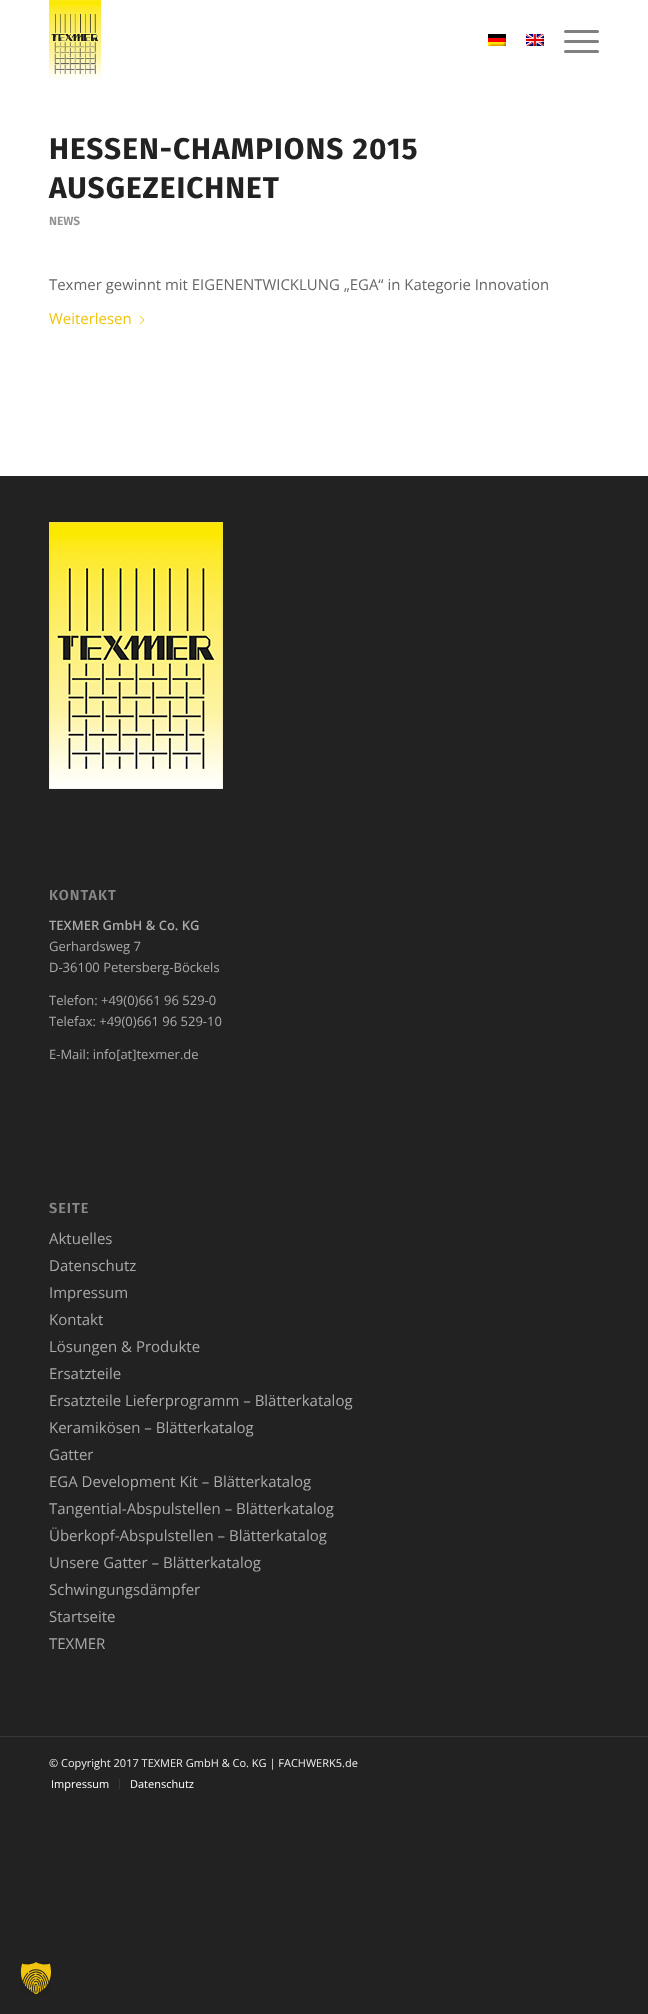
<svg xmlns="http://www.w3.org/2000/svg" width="648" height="2014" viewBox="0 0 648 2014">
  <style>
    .t1 { font: bold 29.9px Fira Sans; letter-spacing: 1px; fill: #222; }
    .t2 { font: 600 12px Fira Sans; fill: #919191; }
    .t3 { font: 14.95px Open Sans; fill: #666; }
    .t4 { font: 14.95px Open Sans; fill: #f1c40f; }
    .t5 { font: 600 14.5px Fira Sans; letter-spacing: 1px; fill: #888; }
    .t6 { font: 600 13px Open Sans; fill: #aaa; }
    .t7 { font: 13px Open Sans; fill: #aaa; }
    .t8 { font: 15px Open Sans; fill: #aaa; }
    .t9 { font: 11px Open Sans; fill: #eee; }
    .t10 { font: 11px Open Sans; fill: #fff; }
  </style>
  <rect width="100%" height="100%" fill="#222"/>
  <rect x="0" y="0" width="648" height="476" fill="#fff"/>
  <image x="49" y="0" width="52" height="79" href="images/1.png"/>
  <image x="488" y="34" width="18" height="12" href="images/2.png"/>
  <image x="526" y="34" width="18" height="12" href="images/3.png"/>
  <rect x="564" y="40" width="35" height="3" rx="1.5" fill="#808080"/>
  <rect x="564" y="30" width="35" height="3" rx="1.5" fill="#808080"/>
  <rect x="564" y="50" width="35" height="3" rx="1.5" fill="#808080"/>
  <text x="49" y="159" class="t1">HESSEN-CHAMPIONS 2015</text>
  <text x="49" y="198" class="t1">AUSGEZEICHNET</text>
  <text x="49" y="225" class="t2">NEWS</text>
  <text x="49" y="290" class="t3">Texmer gewinnt mit EIGENENTWICKLUNG „EGA“ in Kategorie Innovation</text>
  <text x="49" y="324" class="t4">Weiterlesen</text>
  <image x="139" y="315" width="6" height="10" href="images/4.png"/>
  <image x="49" y="522" width="174" height="267" href="images/5.png"/>
  <text x="49" y="900" class="t5">KONTAKT</text>
  <text x="49" y="930" class="t6">TEXMER GmbH &amp; Co. KG</text>
  <text x="49" y="951" class="t7">Gerhardsweg 7</text>
  <text x="49" y="972" class="t7">D-36100 Petersberg-Böckels</text>
  <text x="49" y="1005" class="t7">Telefon: +49(0)661 96 529-0</text>
  <text x="49" y="1026" class="t7">Telefax: +49(0)661 96 529-10</text>
  <text x="49" y="1059" class="t7">E-Mail: info[at]texmer.de</text>
  <text x="49" y="1213" class="t5">SEITE</text>
  <text x="49" y="1244" class="t8">Aktuelles</text>
  <text x="49" y="1271" class="t8">Datenschutz</text>
  <text x="49" y="1298" class="t8">Impressum</text>
  <text x="49" y="1325" class="t8">Kontakt</text>
  <text x="49" y="1352" class="t8">Lösungen &amp; Produkte</text>
  <text x="49" y="1379" class="t8">Ersatzteile</text>
  <text x="49" y="1406" class="t8">Ersatzteile Lieferprogramm – Blätterkatalog</text>
  <text x="49" y="1433" class="t8">Keramikösen – Blätterkatalog</text>
  <text x="49" y="1460" class="t8">Gatter</text>
  <text x="49" y="1487" class="t8">EGA Development Kit – Blätterkatalog</text>
  <text x="49" y="1514" class="t8">Tangential-Abspulstellen – Blätterkatalog</text>
  <text x="49" y="1541" class="t8">Überkopf-Abspulstellen – Blätterkatalog</text>
  <text x="49" y="1568" class="t8">Unsere Gatter – Blätterkatalog</text>
  <text x="49" y="1595" class="t8">Schwingungsdämpfer</text>
  <text x="49" y="1622" class="t8">Startseite</text>
  <text x="49" y="1649" class="t8">TEXMER</text>
  <rect x="0" y="1736" width="648" height="1" fill="#373737"/>
  <text x="49" y="1767" class="t9">© Copyright 2017 TEXMER GmbH &amp; Co. KG | FACHWERK5.de</text>
  <text x="51" y="1788" class="t10">Impressum</text>
  <rect x="119" y="1779" width="1" height="10" fill="#373737"/>
  <text x="130" y="1788" class="t10">Datenschutz</text>
  <image x="20" y="1962" width="31" height="32" href="images/6.png"/>
</svg>
